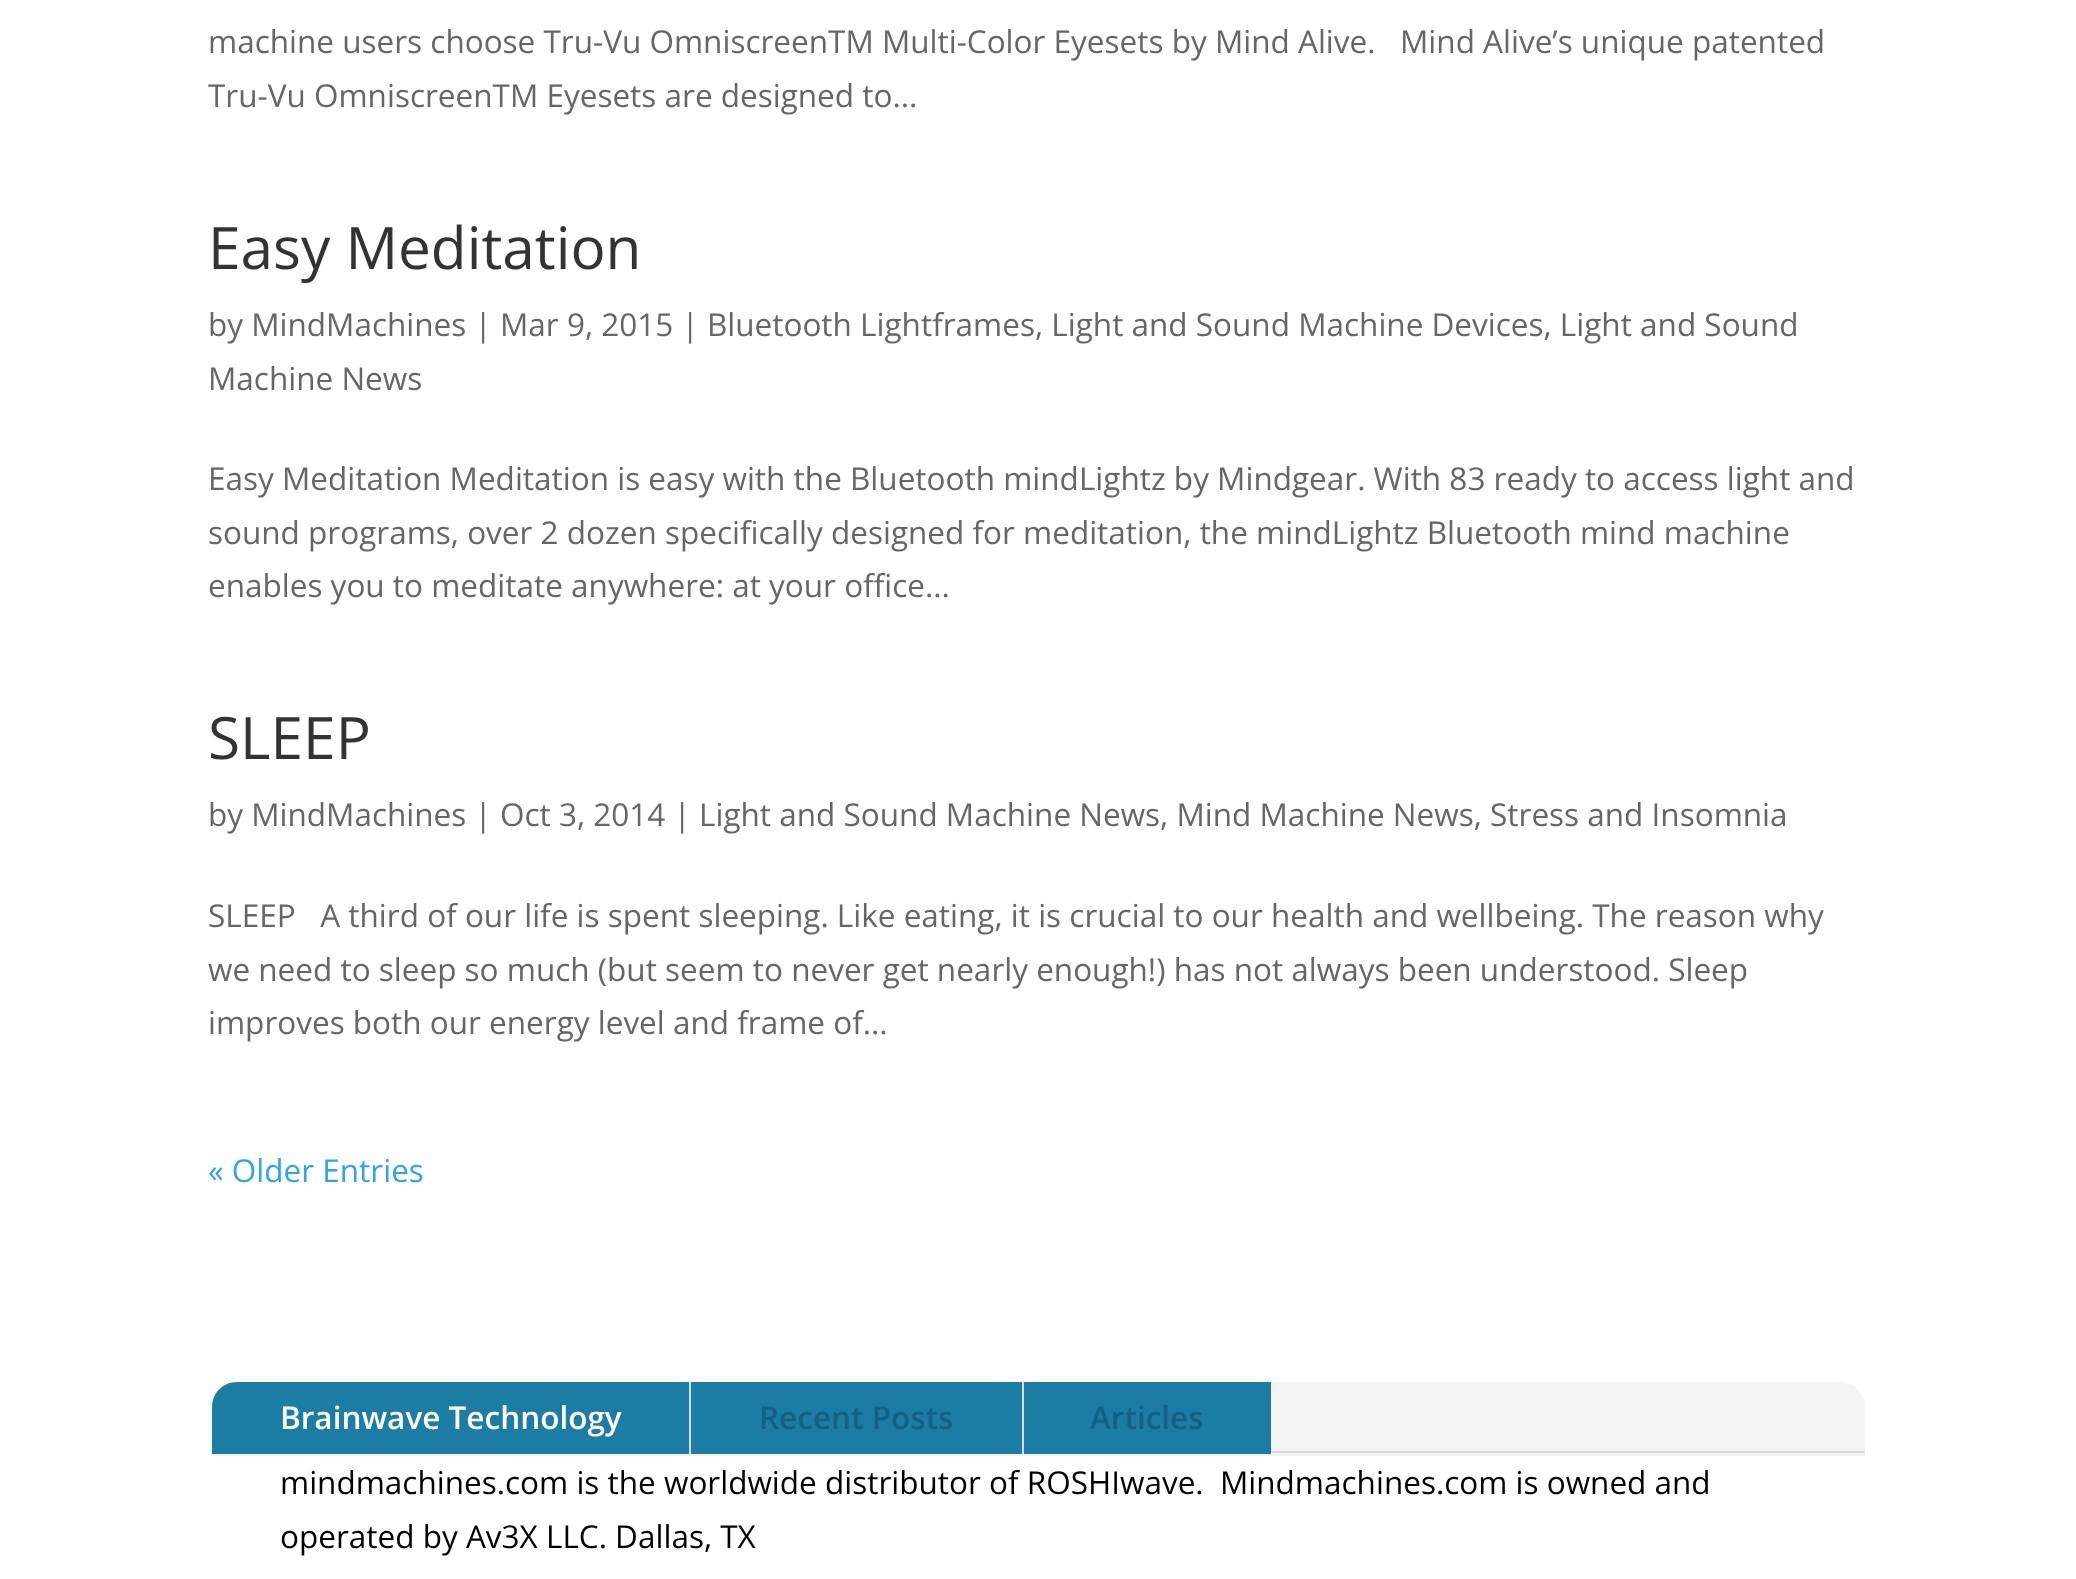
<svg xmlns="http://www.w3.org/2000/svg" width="2076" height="1579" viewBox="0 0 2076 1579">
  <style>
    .t1 { font: 31.5px Open Sans; fill: #666; }
    .t2 { font: 58.5px Open Sans; fill: #333; }
    .t3 { font: 31.5px Open Sans; fill: #2ea3f2; }
    .t4 { font: 600 31.5px Open Sans; fill: #fff; }
    .t5 { font: 600 31.5px Open Sans; fill: #14607f; }
    .t6 { font: 31.5px Open Sans; fill: #000; }
  </style>
  <rect width="100%" height="100%" fill="#fff"/>
  <text x="208" y="53" class="t1" xml:space="preserve">machine users choose Tru-Vu OmniscreenTM Multi-Color Eyesets by Mind Alive.   Mind Alive’s unique patented</text>
  <text x="208" y="107" class="t1">Tru-Vu OmniscreenTM Eyesets are designed to...</text>
  <text x="208" y="269" class="t2">Easy Meditation</text>
  <text x="208" y="336" class="t1">by MindMachines | Mar 9, 2015 | Bluetooth Lightframes, Light and Sound Machine Devices, Light and Sound</text>
  <text x="208" y="390" class="t1">Machine News</text>
  <text x="208" y="490" class="t1">Easy Meditation Meditation is easy with the Bluetooth mindLightz by Mindgear. With 83 ready to access light and</text>
  <text x="208" y="544" class="t1">sound programs, over 2 dozen specifically designed for meditation, the mindLightz Bluetooth mind machine</text>
  <text x="208" y="597" class="t1">enables you to meditate anywhere: at your office...</text>
  <text x="208" y="759" class="t2">SLEEP</text>
  <text x="208" y="826" class="t1">by MindMachines | Oct 3, 2014 | Light and Sound Machine News, Mind Machine News, Stress and Insomnia</text>
  <text x="208" y="927" class="t1" xml:space="preserve">SLEEP   A third of our life is spent sleeping. Like eating, it is crucial to our health and wellbeing. The reason why</text>
  <text x="208" y="981" class="t1">we need to sleep so much (but seem to never get nearly enough!) has not always been understood. Sleep</text>
  <text x="208" y="1034" class="t1">improves both our energy level and frame of...</text>
  <text x="208" y="1182" class="t3">« Older Entries</text>
  <path d="M237 1382H1840C1854 1382 1865 1393 1865 1407V1456H212V1407C212 1393 223 1382 237 1382Z" fill="#f4f4f4"/>
  <path d="M237 1382H691V1454H212V1407C212 1393 223 1382 237 1382Z" fill="#1c7da4"/>
  <rect x="689" y="1382" width="2" height="72" fill="#d9d9d9"/>
  <text x="280" y="1429" class="t4">Brainwave Technology</text>
  <rect x="691" y="1382" width="331" height="72" fill="#1c7da4"/>
  <rect x="1022" y="1382" width="2" height="72" fill="#d9d9d9"/>
  <text x="759" y="1429" class="t5">Recent Posts</text>
  <rect x="1024" y="1382" width="247" height="72" fill="#1c7da4"/>
  <text x="1090" y="1429" class="t5">Articles</text>
  <rect x="1271" y="1451" width="594" height="2" fill="#d9d9d9"/>
  <text x="280" y="1494" class="t6" xml:space="preserve">mindmachines.com is the worldwide distributor of ROSHIwave.  Mindmachines.com is owned and</text>
  <text x="280" y="1548" class="t6">operated by Av3X LLC. Dallas, TX</text>
</svg>
